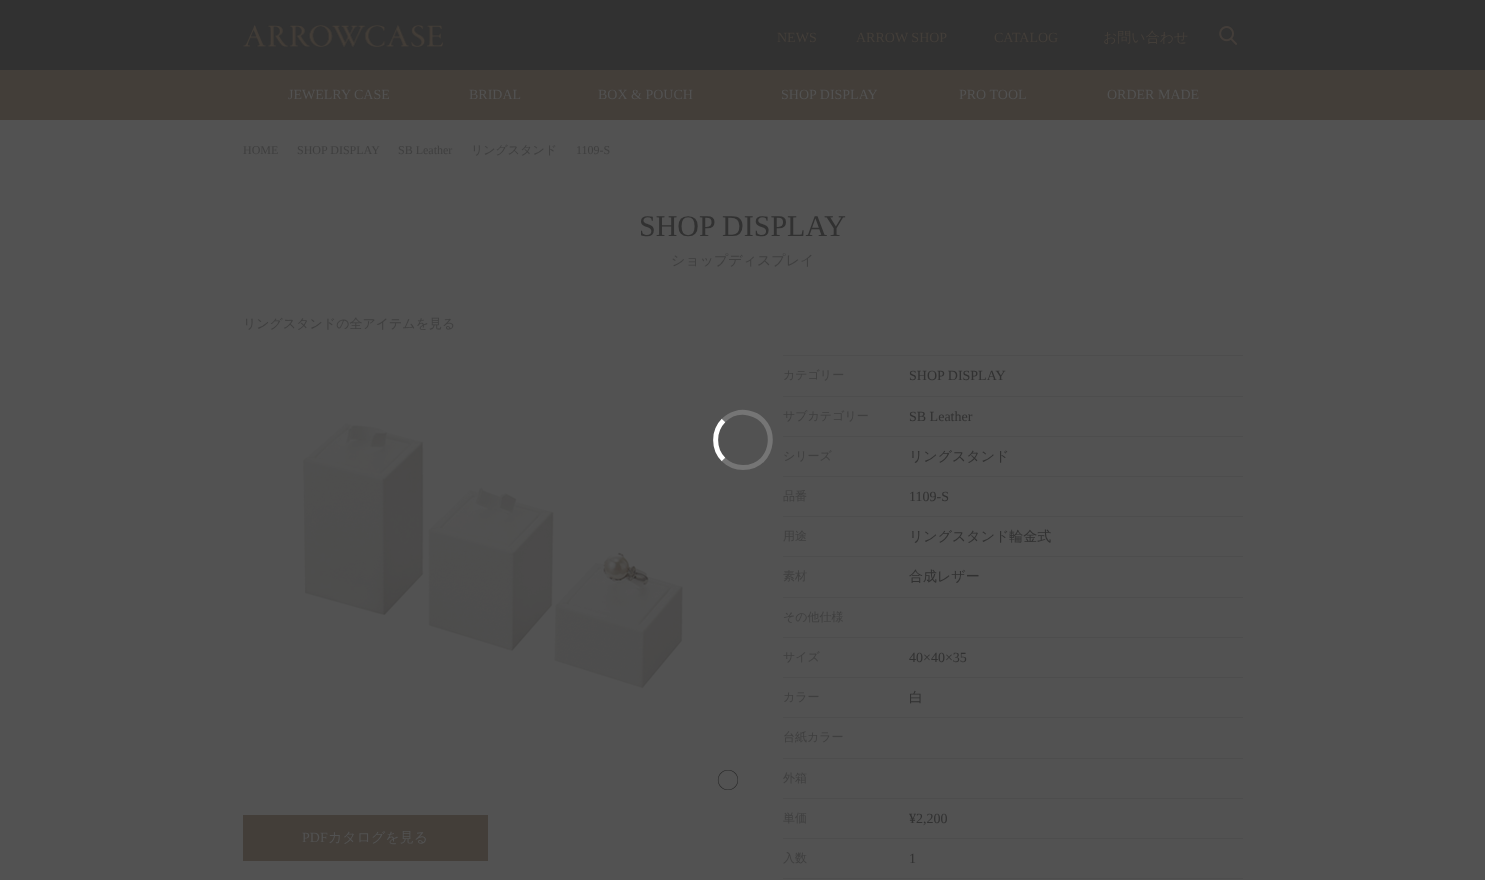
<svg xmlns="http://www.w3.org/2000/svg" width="1485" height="880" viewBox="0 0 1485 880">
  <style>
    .t1 { font: 14px Liberation Serif; fill: #433e39; }
    .t2 { font: 500 14px WenQuanYi Zen Hei; fill: #433e39; }
    .t3 { font: 14px Liberation Serif; fill: #525252; }
    .t4 { font: 12px Liberation Serif; fill: #3f3f3f; }
    .t5 { font: 500 12px WenQuanYi Zen Hei; fill: #3f3f3f; }
    .t6 { font: 30px Liberation Serif; fill: #313131; }
    .t7 { font: 500 14px WenQuanYi Zen Hei; fill: #3f3f3f; }
    .t8 { font: 500 13px WenQuanYi Zen Hei; fill: #3f3f3f; }
    .t9 { font: 500 14px WenQuanYi Zen Hei; fill: #525252; }
    .t10 { font: 14px Liberation Serif; fill: #313131; }
    .t11 { font: 500 14px WenQuanYi Zen Hei; fill: #313131; }
  </style>
  <rect width="100%" height="100%" fill="#313131"/>
  <image x="243" y="25" width="200" height="22" href="images/1.png"/>
  <text x="777" y="42" class="t1">NEWS</text>
  <text x="856" y="42" class="t1">ARROW SHOP</text>
  <text x="994" y="42" class="t1">CATALOG</text>
  <text x="1103" y="42" class="t2">お問い合わせ</text>
  <image x="1219" y="26" width="19" height="19" href="images/2.png"/>
  <rect x="0" y="70" width="1485" height="50" fill="#433e39"/>
  <text x="288" y="99" class="t3">JEWELRY CASE</text>
  <text x="469" y="99" class="t3">BRIDAL</text>
  <text x="598" y="99" class="t3">BOX &amp; POUCH</text>
  <text x="781" y="99" class="t3">SHOP DISPLAY</text>
  <text x="959" y="99" class="t3">PRO TOOL</text>
  <text x="1107" y="99" class="t3">ORDER MADE</text>
  <rect x="0" y="120" width="1485" height="760" fill="#525252"/>
  <text x="243" y="154" class="t4">HOME</text>
  <text x="297" y="154" class="t4">SHOP DISPLAY</text>
  <text x="398" y="154" class="t4">SB Leather</text>
  <text x="471" y="154" class="t5">リングスタンド</text>
  <text x="576" y="154" class="t4">1109-S</text>
  <text x="639" y="236" class="t6">SHOP DISPLAY</text>
  <text x="671" y="265" class="t7">ショップディスプレイ</text>
  <text x="243" y="328" class="t8">リングスタンドの全アイテムを見る</text>
  <image x="303" y="423" width="380" height="266" href="images/3.png"/>
  <image x="717" y="770" width="21" height="20" href="images/4.png"/>
  <rect x="243" y="815" width="245" height="46" fill="#433e39"/>
  <text x="302" y="842" class="t3">PDF</text>
  <text x="328" y="842" class="t9">カタログを見る</text>
  <rect x="783" y="355" width="460" height="1" fill="#4d4d4d"/>
  <text x="783" y="379" class="t5">カテゴリー</text>
  <rect x="783" y="396" width="460" height="1" fill="#4d4d4d"/>
  <text x="909" y="380" class="t10">SHOP DISPLAY</text>
  <text x="783" y="420" class="t5">サブカテゴリー</text>
  <rect x="783" y="436" width="460" height="1" fill="#4d4d4d"/>
  <text x="909" y="421" class="t10">SB Leather</text>
  <text x="783" y="460" class="t5">シリーズ</text>
  <rect x="783" y="476" width="460" height="1" fill="#4d4d4d"/>
  <text x="909" y="461" class="t11">リングスタンド</text>
  <text x="783" y="500" class="t5">品番</text>
  <rect x="783" y="516" width="460" height="1" fill="#4d4d4d"/>
  <text x="909" y="501" class="t10">1109-S</text>
  <text x="783" y="540" class="t5">用途</text>
  <rect x="783" y="556" width="460" height="1" fill="#4d4d4d"/>
  <text x="909" y="541" class="t11">リングスタンド輪金式</text>
  <text x="783" y="580" class="t5">素材</text>
  <rect x="783" y="597" width="460" height="1" fill="#4d4d4d"/>
  <text x="909" y="581" class="t11">合成レザー</text>
  <text x="783" y="621" class="t5">その他仕様</text>
  <rect x="783" y="637" width="460" height="1" fill="#4d4d4d"/>
  <text x="783" y="661" class="t5">サイズ</text>
  <rect x="783" y="677" width="460" height="1" fill="#4d4d4d"/>
  <text x="909" y="662" class="t10">40×40×35</text>
  <text x="783" y="701" class="t5">カラー</text>
  <rect x="783" y="717" width="460" height="1" fill="#4d4d4d"/>
  <text x="909" y="702" class="t11">白</text>
  <text x="783" y="741" class="t5">台紙カラー</text>
  <rect x="783" y="758" width="460" height="1" fill="#4d4d4d"/>
  <text x="783" y="782" class="t5">外箱</text>
  <rect x="783" y="798" width="460" height="1" fill="#4d4d4d"/>
  <text x="783" y="822" class="t5">単価</text>
  <rect x="783" y="838" width="460" height="1" fill="#4d4d4d"/>
  <text x="909" y="823" class="t10">¥2,200</text>
  <text x="783" y="862" class="t5">入数</text>
  <rect x="783" y="878" width="460" height="1" fill="#4d4d4d"/>
  <text x="909" y="863" class="t10">1</text>
  <path d="M723.5 420.5C730 414 739.5 411 748.5 413C780.5 419.5 776 467.5 743 467.5C736 467.5 728.5 464.5 723.5 459.5" fill="none" stroke="#757575" stroke-width="5"/>
  <path d="M723.5 459.5C713 449 713 431 723.5 420.5" fill="none" stroke="#fff" stroke-width="5"/>
</svg>
